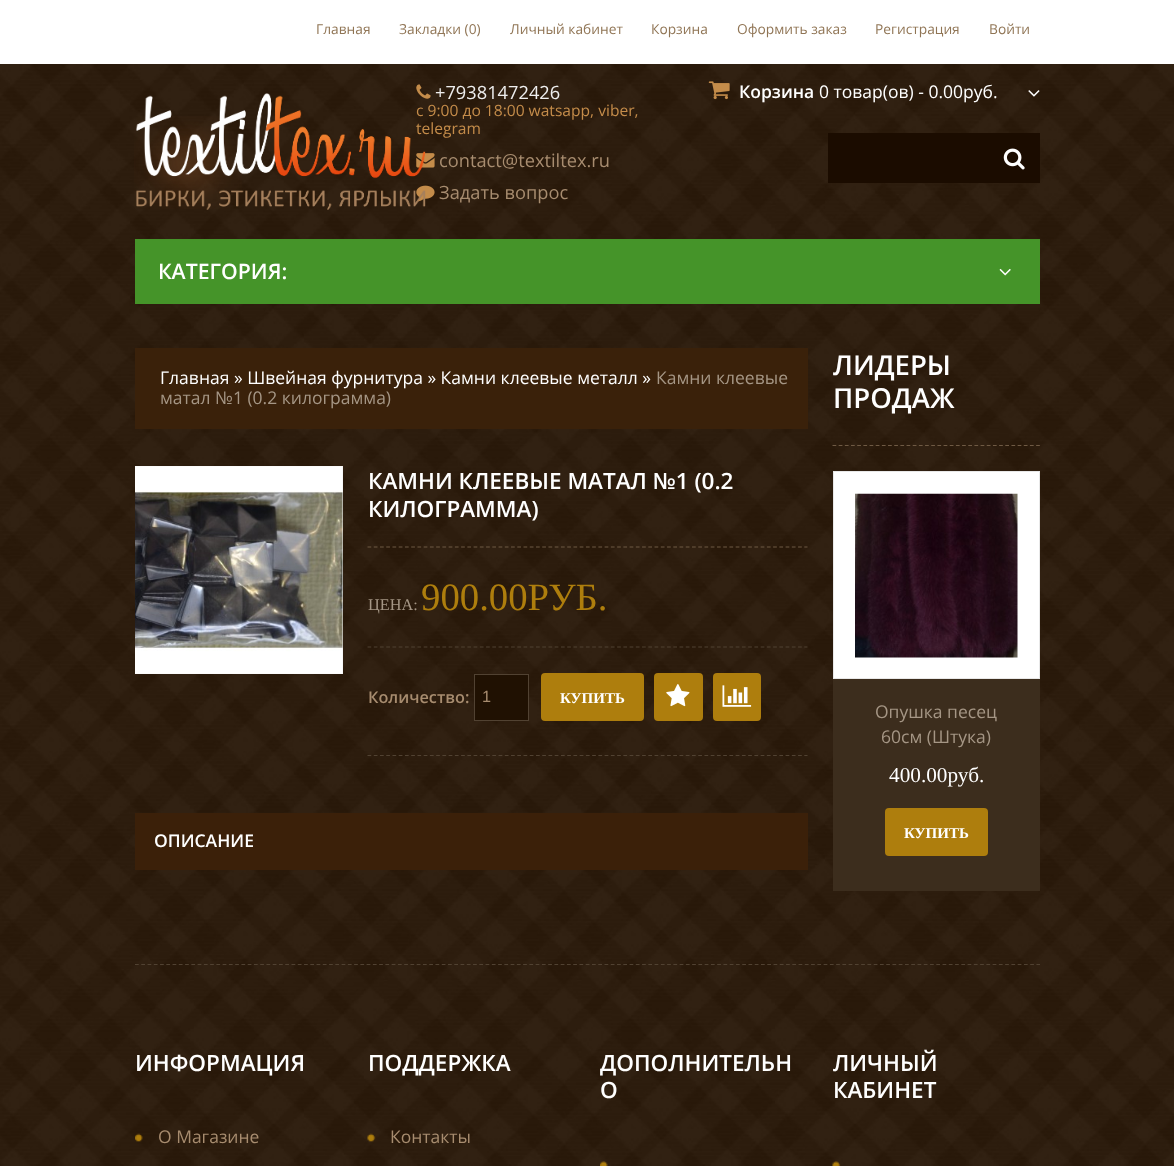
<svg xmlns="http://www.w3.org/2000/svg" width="1174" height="1166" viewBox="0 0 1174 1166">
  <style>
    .t1 { font: 13.75px Open Sans; fill: #907555; }
    .t2 { font: 15.6px Open Sans; fill: #c48c4a; }
    .t3 { font: 18.25px Open Sans; fill: #eee; }
    .t4 { font: 18.25px Open Sans; fill: #a78c6f; }
    .t5 { font: 600 17.5px Open Sans; fill: #fff; }
    .t6 { font: 17.5px Open Sans; fill: #fff; }
    .t7 { font: 600 21.25px Open Sans; fill: #fff; }
    .t8 { font: 17.5px Open Sans; fill: #a59685; }
    .t9 { font: 600 22.5px Open Sans; fill: #fff; }
    .t10 { font: 16.25px Liberation Serif; fill: #a59685; }
    .t11 { font: 38.75px Liberation Serif; fill: #ae7e0d; }
    .t12 { font: 600 16.25px Open Sans; fill: #a78c6f; }
    .t13 { font: 16.25px Liberation Sans; fill: #a78c6f; }
    .t14 { font: bold 15px Liberation Serif; fill: #fff; }
    .t15 { font: 600 27.5px Open Sans; fill: #fff; }
    .t16 { font: 21.25px Liberation Serif; fill: #fff; }
    .t17 { font: 17.5px Open Sans; fill: #a78c6f; }
  </style>
  <defs>
    <clipPath id="clip1"><rect x="833" y="348" width="207" height="550"/></clipPath>
  </defs>
  <rect width="100%" height="100%" fill="#fff"/>
  <image x="0" y="64" width="1174" height="1102" href="images/1.png"/>
  <text x="316" y="34" class="t1">Главная</text>
  <text x="399" y="34" class="t1">Закладки (0)</text>
  <text x="510" y="34" class="t1">Личный кабинет</text>
  <text x="651" y="34" class="t1">Корзина</text>
  <text x="737" y="34" class="t1">Оформить заказ</text>
  <text x="875" y="34" class="t1">Регистрация</text>
  <text x="989" y="34" class="t1">Войти</text>
  <image x="134" y="116" width="108" height="93" href="images/3.png"/>
  <image x="416" y="84" width="15" height="15" href="images/4.png"/>
  <text x="416" y="116" class="t2">c 9:00 до 18:00 watsapp, viber,</text>
  <text x="416" y="134" class="t2">telegram</text>
  <image x="416" y="153" width="19" height="15" href="images/5.png"/>
  <image x="416" y="185" width="19" height="17" href="images/6.png"/>
  <image x="135" y="93" width="291" height="117" href="images/2.png"/>
  <text x="435" y="99" class="t3"> +79381472426</text>
  <text x="439" y="167" class="t4">contact@textiltex.ru</text>
  <text x="439" y="199" class="t4">Задать вопрос</text>
  <image x="708" y="81" width="22" height="19" href="images/7.png"/>
  <text x="739" y="98" class="t5">Корзина</text>
  <text x="819" y="98" class="t6">0 товар(ов) - 0.00руб.</text>
  <image x="1028" y="90" width="12" height="7" href="images/8.png"/>
  <rect x="828" y="133" width="212" height="50" fill="#1b0c00"/>
  <image x="1003" y="148" width="22" height="22" href="images/9.png"/>
  <rect x="135" y="239" width="905" height="65" fill="#459429"/>
  <text x="158" y="279" class="t7">КАТЕГОРИЯ:</text>
  <image x="999" y="268" width="12" height="8" href="images/10.png"/>
  <rect x="135" y="348" width="673" height="81" fill="#3a210a"/>
  <text x="160" y="384" class="t6">Главная » Швейная фурнитура » Камни клеевые металл »</text>
  <text x="656" y="384" class="t8">Камни клеевые</text>
  <text x="160" y="404" class="t8">матал №1 (0.2 килограмма)</text>
  <rect x="135" y="466" width="208" height="208" fill="#efeeee"/>
  <image x="135" y="466" width="208" height="208" href="images/11.png"/>
  <path d="M367.5 547H807.5" fill="none" stroke="#6f5a44" stroke-width="1.2" stroke-dasharray="3.75 2.49"/>
  <text x="368" y="489" class="t9">КАМНИ КЛЕЕВЫЕ МАТАЛ №1 (0.2</text>
  <text x="368" y="517" class="t9">КИЛОГРАММА)</text>
  <path d="M367.5 647H807.5" fill="none" stroke="#514232" stroke-width="1.2" stroke-dasharray="3.75 2.49"/>
  <text x="368" y="610" class="t10">ЦЕНА:</text>
  <text x="421" y="610" class="t11">900.00РУБ.</text>
  <path d="M367.5 755.5H807.5" fill="none" stroke="#514232" stroke-width="1.2" stroke-dasharray="3.75 2.49"/>
  <text x="368" y="703" class="t12">Количество:</text>
  <rect x="474.5" y="674.5" width="54" height="46" fill="#201102" stroke="#514232"/>
  <text x="482" y="702" class="t13">1</text>
  <rect x="541" y="673" width="103" height="48" rx="4" fill="#ae7e0d"/>
  <text x="560" y="703" class="t14">КУПИТЬ</text>
  <rect x="654" y="673" width="49" height="48" rx="4" fill="#ae7e0d"/>
  <image x="666" y="684" width="24" height="23" href="images/12.png"/>
  <rect x="713" y="673" width="48" height="48" rx="4" fill="#ae7e0d"/>
  <image x="722" y="685" width="30" height="22" href="images/13.png"/>
  <rect x="135" y="813" width="673" height="57" fill="#3b2009"/>
  <text x="154" y="847" class="t5">ОПИСАНИЕ</text>
  <path d="M832.5 445.5H1040" fill="none" stroke="#6f5a44" stroke-width="1.2" stroke-dasharray="3.75 2.42"/>
  <g clip-path="url(#clip1)">
    <text x="833" y="375" class="t15">ЛИДЕРЫ</text>
  </g>
  <text x="833" y="408" class="t15">ПРОДАЖ</text>
  <rect x="833" y="679" width="207" height="212" fill="#3c2d1d"/>
  <rect x="833.5" y="471.5" width="206" height="207" fill="#fff" stroke="#e8e8e8"/>
  <image x="855" y="493" width="163" height="165" href="images/14.png"/>
  <text x="875" y="718" class="t8">Опушка песец</text>
  <text x="881" y="743" class="t8">60см (Штука)</text>
  <text x="889" y="782" class="t16">400.00руб.</text>
  <rect x="885" y="808" width="103" height="48" rx="4" fill="#ae7e0d"/>
  <text x="904" y="838" class="t14">КУПИТЬ</text>
  <path d="M135 964.5H1040" fill="none" stroke="#514232" stroke-width="1.2" stroke-dasharray="3.75 2.51"/>
  <text x="135" y="1071" class="t9">ИНФОРМАЦИЯ</text>
  <image x="135" y="1133" width="8" height="9" href="images/15.png"/>
  <text x="158" y="1143" class="t17">О Магазине</text>
  <text x="368" y="1071" class="t9">ПОДДЕРЖКА</text>
  <image x="367" y="1133" width="9" height="9" href="images/16.png"/>
  <text x="390" y="1143" class="t17">Контакты</text>
  <text x="600" y="1071" class="t9">ДОПОЛНИТЕЛЬН</text>
  <text x="600" y="1098" class="t9">О</text>
  <image x="600" y="1161" width="8" height="5" href="images/17.png"/>
  <text x="833" y="1071" class="t9">ЛИЧНЫЙ</text>
  <text x="833" y="1098" class="t9">КАБИНЕТ</text>
  <image x="832" y="1161" width="9" height="5" href="images/18.png"/>
</svg>
